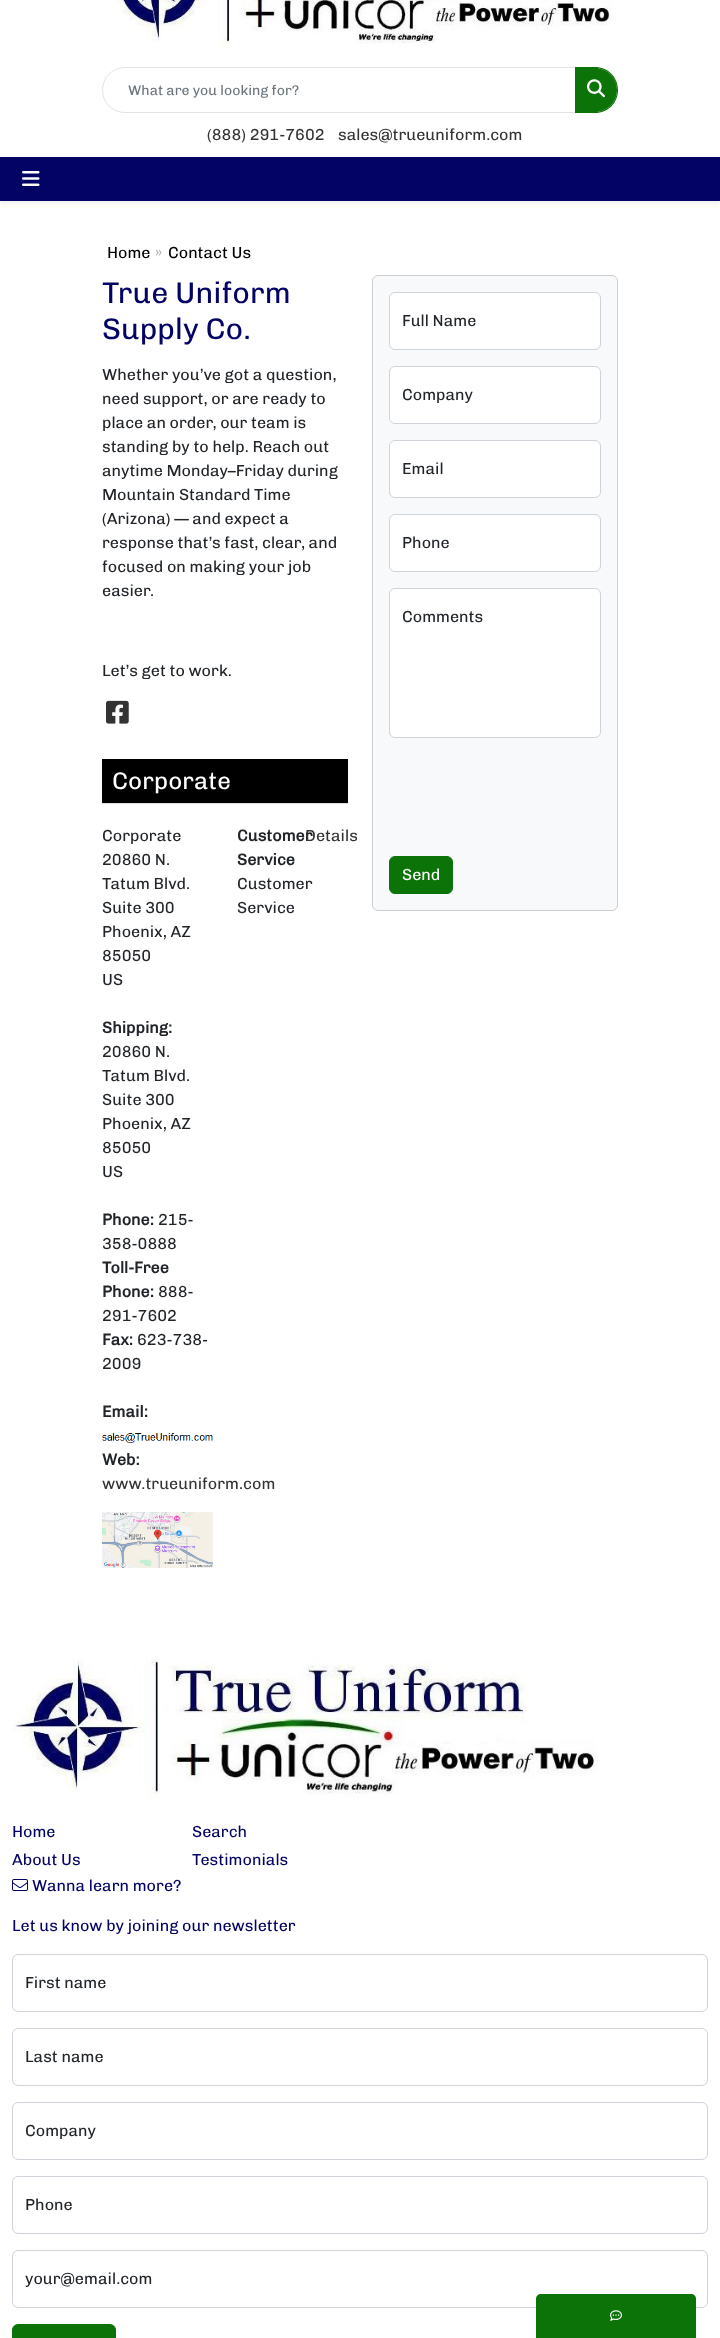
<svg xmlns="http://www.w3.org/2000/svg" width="720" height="2338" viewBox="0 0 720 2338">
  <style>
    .t1 { font: 500 14px Chivo; fill: #6c757d; }
    .t2 { font: 500 16px Chivo; fill: #333; }
    .t3 { font: 500 16px Chivo; fill: #000; }
    .t4 { font: 500 16px Chivo; fill: #b2b1b1; }
    .t5 { font: 500 30px Chivo; fill: #030365; }
    .t6 { font: 500 16px Chivo; fill: #212529; }
    .t7 { font: 500 24px Chivo; fill: #fff; }
    .t8 { font: bold 16px Chivo; fill: #212529; }
    .t9 { font: 500 16px Chivo; fill: #fff; }
    .t10 { font: 500 16px Chivo; fill: #030365; }
  </style>
  <rect width="100%" height="100%" fill="#fff"/>
  <image x="115" y="0" width="498" height="47" href="images/1.png"/>
  <path d="M125 67.5H575.5V112.5H125C112.5 112.5 102.5 102.5 102.5 90C102.5 77.5 112.5 67.5 125 67.5Z" fill="none" stroke="#e4e4e4"/>
  <text x="128" y="95" class="t1">What are you looking for?</text>
  <path d="M575 68H595C607 68 617 78 617 90C617 102 607 112 595 112H575Z" fill="#0c7308"/>
  <path d="M575 67H595C608 67 618 77 618 90C618 103 608 113 595 113H575ZM575 68H595C607 68 617 78 617 90C617 102 607 112 595 112H575Z" fill="#0c7308" fill-rule="evenodd"/>
  <image x="587" y="79" width="18" height="19" href="images/2.png"/>
  <text x="207" y="140" class="t2">(888) 291-7602</text>
  <text x="338" y="140" class="t2">sales@trueuniform.com</text>
  <rect x="0" y="159" width="720" height="44" fill="#00000012" filter="blur(2px)"/>
  <rect x="0" y="157" width="720" height="44" fill="#030365"/>
  <image x="22" y="171" width="18" height="15" href="images/3.png"/>
  <text x="107" y="258" class="t3">Home</text>
  <text x="155" y="258" class="t4">»</text>
  <text x="168" y="258" class="t3">Contact Us</text>
  <text x="102" y="303" class="t5">True Uniform</text>
  <text x="102" y="339" class="t5">Supply Co.</text>
  <text x="102" y="380" class="t6">Whether you’ve got a question,</text>
  <text x="102" y="404" class="t6">need support, or are ready to</text>
  <text x="102" y="428" class="t6">place an order, our team is</text>
  <text x="102" y="452" class="t6">standing by to help. Reach out</text>
  <text x="102" y="476" class="t6">anytime Monday–Friday during</text>
  <text x="102" y="500" class="t6">Mountain Standard Time</text>
  <text x="102" y="524" class="t6">(Arizona) — and expect a</text>
  <text x="102" y="548" class="t6">response that’s fast, clear, and</text>
  <text x="102" y="572" class="t6">focused on making your job</text>
  <text x="102" y="596" class="t6">easier.</text>
  <text x="102" y="676" class="t6">Let’s get to work.</text>
  <image x="106" y="700" width="23" height="24" href="images/4.png"/>
  <rect x="102" y="759" width="246" height="44" fill="#000"/>
  <rect x="102" y="803" width="246" height="1" fill="#ddd"/>
  <text x="112" y="789" class="t7">Corporate</text>
  <text x="102" y="841" class="t6">Corporate</text>
  <text x="102" y="865" class="t6">20860 N.</text>
  <text x="102" y="889" class="t6">Tatum Blvd.</text>
  <text x="102" y="913" class="t6">Suite 300</text>
  <text x="102" y="937" class="t6">Phoenix, AZ</text>
  <text x="102" y="961" class="t6">85050</text>
  <text x="102" y="985" class="t6">US</text>
  <text x="102" y="1033" class="t8">Shipping:</text>
  <text x="102" y="1057" class="t6">20860 N.</text>
  <text x="102" y="1081" class="t6">Tatum Blvd.</text>
  <text x="102" y="1105" class="t6">Suite 300</text>
  <text x="102" y="1129" class="t6">Phoenix, AZ</text>
  <text x="102" y="1153" class="t6">85050</text>
  <text x="102" y="1177" class="t6">US</text>
  <text x="102" y="1225" class="t8">Phone:</text>
  <text x="158" y="1225" class="t6">215-</text>
  <text x="102" y="1249" class="t6">358-0888</text>
  <text x="102" y="1273" class="t8">Toll-Free</text>
  <text x="102" y="1297" class="t8">Phone:</text>
  <text x="158" y="1297" class="t6">888-</text>
  <text x="102" y="1321" class="t6">291-7602</text>
  <text x="102" y="1345" class="t8">Fax:</text>
  <text x="137" y="1345" class="t6">623-738-</text>
  <text x="102" y="1369" class="t6">2009</text>
  <text x="102" y="1417" class="t8">Email:</text>
  <image x="102" y="1433" width="111" height="10" href="images/5.png"/>
  <text x="102" y="1465" class="t8">Web:</text>
  <text x="102" y="1489" class="t2">www.trueuniform.com</text>
  <image x="102" y="1512" width="111" height="56" href="images/6.png"/>
  <text x="237" y="841" class="t8">Customer</text>
  <text x="237" y="865" class="t8">Service</text>
  <text x="237" y="889" class="t6">Customer</text>
  <text x="237" y="913" class="t6">Service</text>
  <text x="305" y="841" class="t2">Details</text>
  <rect x="372.5" y="275.5" width="245" height="635" rx="5.5" fill="#f8f9fa" stroke="#cccdce"/>
  <rect x="389.5" y="292.5" width="211" height="57" rx="5.5" fill="#fff" stroke="#ced4da"/>
  <text x="402" y="326" class="t6">Full Name</text>
  <rect x="389.5" y="366.5" width="211" height="57" rx="5.5" fill="#fff" stroke="#ced4da"/>
  <text x="402" y="400" class="t6">Company</text>
  <rect x="389.5" y="440.5" width="211" height="57" rx="5.5" fill="#fff" stroke="#ced4da"/>
  <text x="402" y="474" class="t6">Email</text>
  <rect x="389.5" y="514.5" width="211" height="57" rx="5.5" fill="#fff" stroke="#ced4da"/>
  <text x="402" y="548" class="t6">Phone</text>
  <rect x="389.5" y="588.5" width="211" height="149" rx="5.5" fill="#fff" stroke="#ced4da"/>
  <text x="402" y="622" class="t6">Comments</text>
  <rect x="389.5" y="856.5" width="63" height="37" rx="5.5" fill="#0c7308" stroke="#0c7308"/>
  <text x="402" y="880" class="t9">Send</text>
  <image x="12" y="1658" width="586" height="140" href="images/7.png"/>
  <text x="12" y="1837" class="t10">Home</text>
  <text x="12" y="1865" class="t10">About Us</text>
  <text x="192" y="1837" class="t10">Search</text>
  <text x="192" y="1865" class="t10">Testimonials</text>
  <image x="12" y="1879" width="16" height="12" href="images/8.png"/>
  <text x="32" y="1891" class="t10">Wanna learn more?</text>
  <text x="12" y="1931" class="t10">Let us know by joining our newsletter</text>
  <rect x="12.5" y="1954.5" width="695" height="57" rx="5.5" fill="none" stroke="#ced4da"/>
  <text x="25" y="1988" class="t6">First name</text>
  <rect x="12.5" y="2028.5" width="695" height="57" rx="5.5" fill="none" stroke="#ced4da"/>
  <text x="25" y="2062" class="t6">Last name</text>
  <rect x="12.5" y="2102.5" width="695" height="57" rx="5.5" fill="none" stroke="#ced4da"/>
  <text x="25" y="2136" class="t6">Company</text>
  <rect x="12.5" y="2176.5" width="695" height="57" rx="5.5" fill="none" stroke="#ced4da"/>
  <text x="25" y="2210" class="t6">Phone</text>
  <rect x="12.5" y="2250.5" width="695" height="57" rx="5.5" fill="none" stroke="#ced4da"/>
  <text x="25" y="2284" class="t6">your@email.com</text>
  <rect x="12.5" y="2324.5" width="103" height="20" rx="5.5" fill="#0c7308" stroke="#0c7308"/>
  <path d="M541 2294H691C694 2294 696 2296 696 2299V2338H536V2299C536 2296 538 2294 541 2294Z" fill="#0c7308"/>
  <image x="610" y="2310" width="12" height="11" href="images/9.png"/>
</svg>
